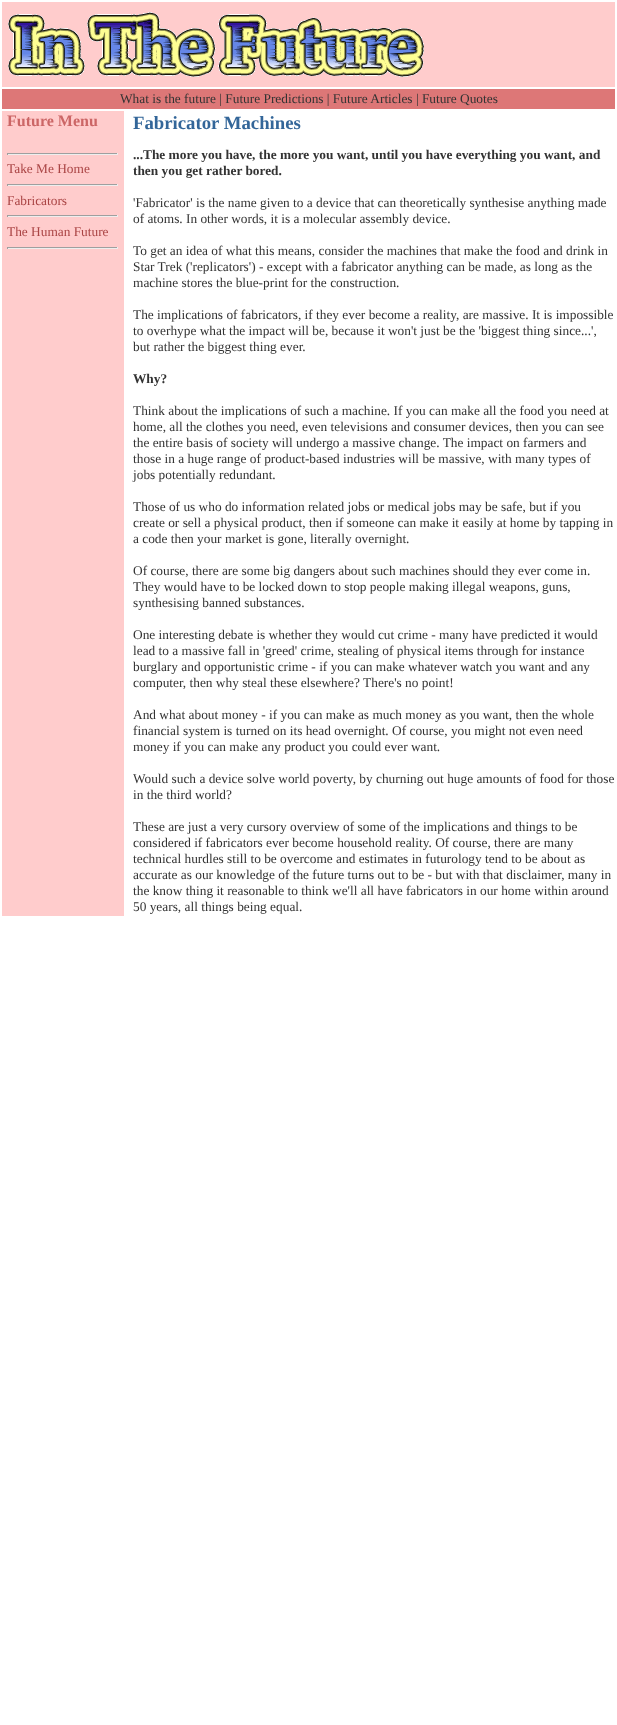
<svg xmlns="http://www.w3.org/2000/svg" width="617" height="1725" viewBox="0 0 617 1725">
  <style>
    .t1 { font: 13.35px Liberation Serif; fill: #333; }
    .t2 { font: bold 16px Liberation Serif; fill: #c66; }
    .t3 { font: 13.35px Liberation Serif; fill: #a44; }
    .t4 { font: bold 18.75px Liberation Serif; fill: #369; }
    .t5 { font: bold 13.35px Liberation Serif; fill: #333; }
  </style>
  <rect width="100%" height="100%" fill="#fff"/>
  <rect x="2" y="2" width="613" height="85" fill="#fcc"/>
  <image x="8" y="12" width="416" height="65" href="images/1.png"/>
  <rect x="2" y="89" width="613" height="20" fill="#d77"/>
  <text x="120" y="103" class="t1">What is the future | Future Predictions | Future Articles | Future Quotes</text>
  <rect x="2" y="111" width="122" height="805" fill="#fcc"/>
  <text x="7" y="126" class="t2">Future Menu</text>
  <rect x="7" y="153" width="111" height="1" fill="#9f9f9f"/>
  <rect x="117" y="153" width="1" height="2" fill="#eee"/>
  <rect x="7" y="154" width="111" height="1" fill="#eee"/>
  <rect x="7" y="153" width="1" height="2" fill="#9f9f9f"/>
  <text x="7" y="173" class="t3">Take Me Home</text>
  <rect x="7" y="184" width="111" height="1" fill="#9f9f9f"/>
  <rect x="117" y="184" width="1" height="2" fill="#eee"/>
  <rect x="7" y="185" width="111" height="1" fill="#eee"/>
  <rect x="7" y="184" width="1" height="2" fill="#9f9f9f"/>
  <text x="7" y="205" class="t3">Fabricators</text>
  <rect x="7" y="215" width="111" height="1" fill="#9f9f9f"/>
  <rect x="117" y="215" width="1" height="2" fill="#eee"/>
  <rect x="7" y="216" width="111" height="1" fill="#eee"/>
  <rect x="7" y="215" width="1" height="2" fill="#9f9f9f"/>
  <text x="7" y="236" class="t3">The Human Future</text>
  <rect x="7" y="247" width="111" height="1" fill="#9f9f9f"/>
  <rect x="117" y="247" width="1" height="2" fill="#eee"/>
  <rect x="7" y="248" width="111" height="1" fill="#eee"/>
  <rect x="7" y="247" width="1" height="2" fill="#9f9f9f"/>
  <text x="133" y="129" class="t4">Fabricator Machines</text>
  <text x="133" y="159" class="t5">...The more you have, the more you want, until you have everything you want, and</text>
  <text x="133" y="175" class="t5">then you get rather bored.</text>
  <text x="133" y="207" class="t1">'Fabricator' is the name given to a device that can theoretically synthesise anything made</text>
  <text x="133" y="223" class="t1">of atoms. In other words, it is a molecular assembly device.</text>
  <text x="133" y="255" class="t1">To get an idea of what this means, consider the machines that make the food and drink in</text>
  <text x="133" y="271" class="t1">Star Trek ('replicators') - except with a fabricator anything can be made, as long as the</text>
  <text x="133" y="287" class="t1">machine stores the blue-print for the construction.</text>
  <text x="133" y="319" class="t1">The implications of fabricators, if they ever become a reality, are massive. It is impossible</text>
  <text x="133" y="335" class="t1">to overhype what the impact will be, because it won't just be the 'biggest thing since...',</text>
  <text x="133" y="351" class="t1">but rather the biggest thing ever.</text>
  <text x="133" y="383" class="t5">Why?</text>
  <text x="133" y="415" class="t1">Think about the implications of such a machine. If you can make all the food you need at</text>
  <text x="133" y="431" class="t1">home, all the clothes you need, even televisions and consumer devices, then you can see</text>
  <text x="133" y="447" class="t1">the entire basis of society will undergo a massive change. The impact on farmers and</text>
  <text x="133" y="463" class="t1">those in a huge range of product-based industries will be massive, with many types of</text>
  <text x="133" y="479" class="t1">jobs potentially redundant.</text>
  <text x="133" y="511" class="t1">Those of us who do information related jobs or medical jobs may be safe, but if you</text>
  <text x="133" y="527" class="t1">create or sell a physical product, then if someone can make it easily at home by tapping in</text>
  <text x="133" y="543" class="t1">a code then your market is gone, literally overnight.</text>
  <text x="133" y="575" class="t1">Of course, there are some big dangers about such machines should they ever come in.</text>
  <text x="133" y="591" class="t1">They would have to be locked down to stop people making illegal weapons, guns,</text>
  <text x="133" y="607" class="t1">synthesising banned substances.</text>
  <text x="133" y="639" class="t1">One interesting debate is whether they would cut crime - many have predicted it would</text>
  <text x="133" y="655" class="t1">lead to a massive fall in 'greed' crime, stealing of physical items through for instance</text>
  <text x="133" y="671" class="t1">burglary and opportunistic crime - if you can make whatever watch you want and any</text>
  <text x="133" y="687" class="t1">computer, then why steal these elsewhere? There's no point!</text>
  <text x="133" y="719" class="t1">And what about money - if you can make as much money as you want, then the whole</text>
  <text x="133" y="735" class="t1">financial system is turned on its head overnight. Of course, you might not even need</text>
  <text x="133" y="751" class="t1">money if you can make any product you could ever want.</text>
  <text x="133" y="783" class="t1">Would such a device solve world poverty, by churning out huge amounts of food for those</text>
  <text x="133" y="799" class="t1">in the third world?</text>
  <text x="133" y="831" class="t1">These are just a very cursory overview of some of the implications and things to be</text>
  <text x="133" y="847" class="t1">considered if fabricators ever become household reality. Of course, there are many</text>
  <text x="133" y="863" class="t1">technical hurdles still to be overcome and estimates in futurology tend to be about as</text>
  <text x="133" y="879" class="t1">accurate as our knowledge of the future turns out to be - but with that disclaimer, many in</text>
  <text x="133" y="895" class="t1">the know thing it reasonable to think we'll all have fabricators in our home within around</text>
  <text x="133" y="911" class="t1">50 years, all things being equal.</text>
</svg>
